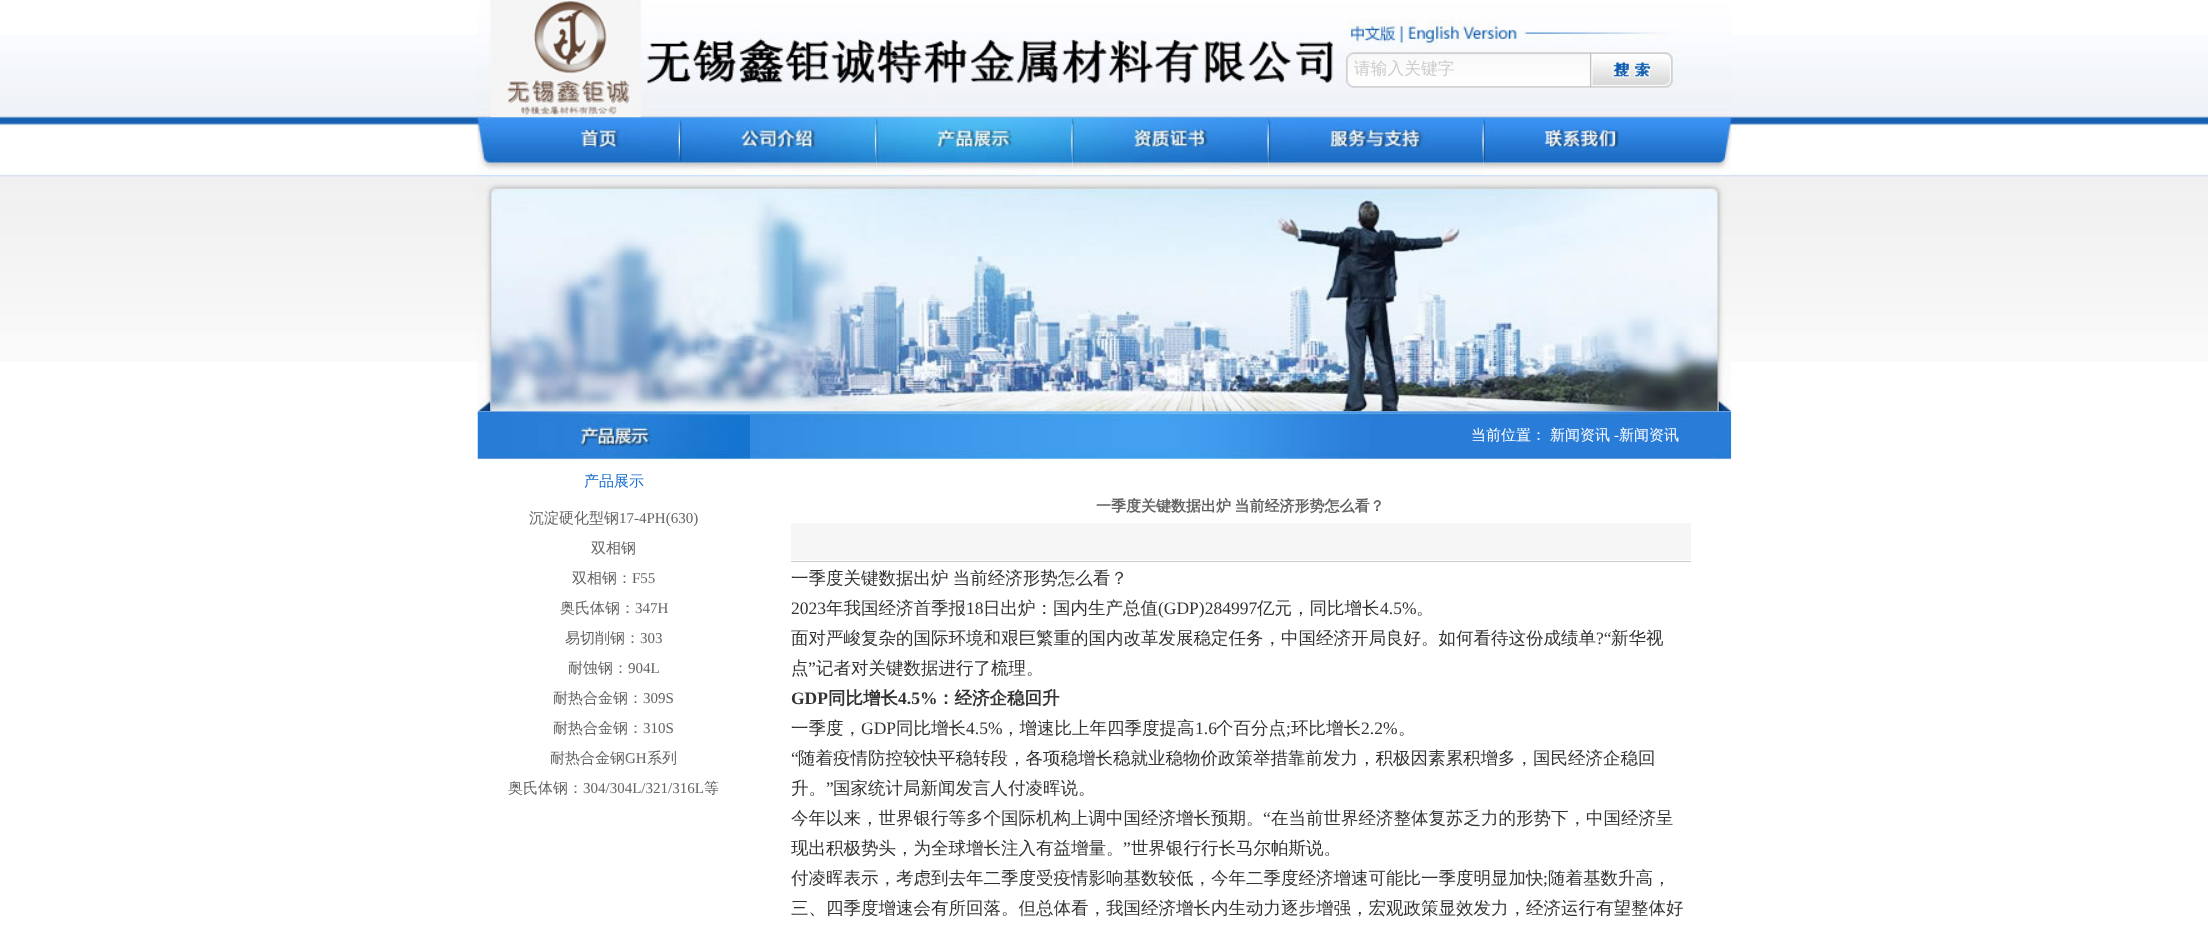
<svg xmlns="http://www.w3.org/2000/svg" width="2208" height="936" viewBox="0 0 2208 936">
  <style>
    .t1 { font: 500 16.75px WenQuanYi Zen Hei; fill: #ccc; }
    .t2 { font: 500 15px WenQuanYi Zen Hei; fill: #166dcc; }
    .t3 { font: 500 15px WenQuanYi Zen Hei; fill: #636363; }
    .t4 { font: 15px Liberation Serif; fill: #636363; }
    .t5 { font: 500 15px WenQuanYi Zen Hei; fill: #fff; }
    .t6 { font: 15px Liberation Serif; fill: #fff; }
    .t7 { font: bold 15px WenQuanYi Zen Hei; fill: #636363; }
    .t8 { font: 500 17.5px WenQuanYi Zen Hei; fill: #333; }
    .t9 { font: 17.5px Liberation Serif; fill: #333; }
    .t10 { font: bold 17.5px Liberation Serif; fill: #333; }
    .t11 { font: bold 17.5px WenQuanYi Zen Hei; fill: #333; }
  </style>
  <rect width="100%" height="100%" fill="#fff"/>
  <image x="0" y="35" width="2208" height="327" href="images/1.png"/>
  <image x="477" y="0" width="1255" height="118" href="images/2.png"/>
  <text x="1354" y="74" class="t1">请输入关键字</text>
  <image x="491" y="411" width="259" height="1" href="images/10.png"/>
  <image x="477" y="176" width="1255" height="236" href="images/9.png"/>
  <image x="477" y="117" width="203" height="60" href="images/3.png"/>
  <image x="680" y="117" width="197" height="60" href="images/4.png"/>
  <image x="876" y="117" width="197" height="60" href="images/5.png"/>
  <image x="1072" y="117" width="197" height="60" href="images/6.png"/>
  <image x="1268" y="117" width="216" height="60" href="images/7.png"/>
  <image x="1483" y="117" width="249" height="60" href="images/8.png"/>
  <image x="477" y="411" width="273" height="49" href="images/11.png"/>
  <text x="584" y="486" class="t2">产品展示</text>
  <text x="529" y="523" class="t3">沉淀硬化型钢</text>
  <text x="619" y="523" class="t4">17-4PH(630)</text>
  <text x="591" y="553" class="t3">双相钢</text>
  <text x="572" y="583" class="t3">双相钢：</text>
  <text x="632" y="583" class="t4">F55</text>
  <text x="560" y="613" class="t3">奥氏体钢：</text>
  <text x="635" y="613" class="t4">347H</text>
  <text x="565" y="643" class="t3">易切削钢：</text>
  <text x="640" y="643" class="t4">303</text>
  <text x="568" y="673" class="t3">耐蚀钢：</text>
  <text x="628" y="673" class="t4">904L</text>
  <text x="553" y="703" class="t3">耐热合金钢：</text>
  <text x="643" y="703" class="t4">309S</text>
  <text x="553" y="733" class="t3">耐热合金钢：</text>
  <text x="643" y="733" class="t4">310S</text>
  <text x="550" y="763" class="t3">耐热合金钢</text>
  <text x="625" y="763" class="t4">GH</text>
  <text x="647" y="763" class="t3">系列</text>
  <text x="508" y="793" class="t3">奥氏体钢：</text>
  <text x="583" y="793" class="t4">304/304L/321/316L</text>
  <text x="704" y="793" class="t3">等</text>
  <image x="750" y="411" width="982" height="49" href="images/12.png"/>
  <text x="1471" y="440" class="t5">当前位置：</text>
  <text x="1550" y="440" class="t5">新闻资讯</text>
  <text x="1614" y="440" class="t6">-</text>
  <text x="1619" y="440" class="t5">新闻资讯</text>
  <text x="1096" y="511" word-spacing="-1" class="t7">一季度关键数据出炉 当前经济形势怎么看？</text>
  <rect x="791" y="523" width="900" height="37" fill="#f6f6f6"/>
  <rect x="791" y="561" width="900" height="1" fill="#ccc"/>
  <text x="791" y="584" word-spacing="-1" class="t8">一季度关键数据出炉 当前经济形势怎么看？</text>
  <text x="791" y="614" class="t9">2023</text>
  <text x="826" y="614" class="t8">年我国经济首季报</text>
  <text x="966" y="614" class="t9">18</text>
  <text x="983" y="614" class="t8">日出炉：国内生产总值</text>
  <text x="1158" y="614" class="t9">(GDP)284997</text>
  <text x="1257" y="614" class="t8">亿元，同比增长</text>
  <text x="1380" y="614" class="t9">4.5%</text>
  <text x="1416" y="614" class="t8">。</text>
  <text x="791" y="644" class="t8">面对严峻复杂的国际环境和艰巨繁重的国内改革发展稳定任务，中国经济开局良好。如何看待这份成绩单</text>
  <text x="1596" y="644" class="t9">?“</text>
  <text x="1611" y="644" class="t8">新华视</text>
  <text x="791" y="674" class="t8">点</text>
  <text x="808" y="674" class="t9">”</text>
  <text x="816" y="674" class="t8">记者对关键数据进行了梳理。</text>
  <text x="791" y="704" class="t10">GDP</text>
  <text x="828" y="704" class="t11">同比增长</text>
  <text x="898" y="704" class="t10">4.5%</text>
  <text x="937" y="704" class="t11">：经济企稳回升</text>
  <text x="791" y="734" class="t8">一季度，</text>
  <text x="861" y="734" class="t9">GDP</text>
  <text x="896" y="734" class="t8">同比增长</text>
  <text x="966" y="734" class="t9">4.5%</text>
  <text x="1002" y="734" class="t8">，增速比上年四季度提高</text>
  <text x="1195" y="734" class="t9">1.6</text>
  <text x="1216" y="734" class="t8">个百分点</text>
  <text x="1286" y="734" class="t9">;</text>
  <text x="1291" y="734" class="t8">环比增长</text>
  <text x="1361" y="734" class="t9">2.2%</text>
  <text x="1398" y="734" class="t8">。</text>
  <text x="791" y="764" class="t9">“</text>
  <text x="798" y="764" class="t8">随着疫情防控较快平稳转段，各项稳增长稳就业稳物价政策举措靠前发力，积极因素累积增多，国民经济企稳回</text>
  <text x="791" y="794" class="t8">升。</text>
  <text x="826" y="794" class="t9">”</text>
  <text x="833" y="794" class="t8">国家统计局新闻发言人付凌晖说。</text>
  <text x="791" y="824" class="t8">今年以来，世界银行等多个国际机构上调中国经济增长预期。</text>
  <text x="1263" y="824" class="t9">“</text>
  <text x="1271" y="824" class="t8">在当前世界经济整体复苏乏力的形势下，中国经济呈</text>
  <text x="791" y="854" class="t8">现出积极势头，为全球增长注入有益增量。</text>
  <text x="1123" y="854" class="t9">”</text>
  <text x="1131" y="854" class="t8">世界银行行长马尔帕斯说。</text>
  <text x="791" y="884" class="t8">付凌晖表示，考虑到去年二季度受疫情影响基数较低，今年二季度经济增速可能比一季度明显加快</text>
  <text x="1543" y="884" class="t9">;</text>
  <text x="1548" y="884" class="t8">随着基数升高，</text>
  <text x="791" y="914" class="t8">三、四季度增速会有所回落。但总体看，我国经济增长内生动力逐步增强，宏观政策显效发力，经济运行有望整体好</text>
</svg>
